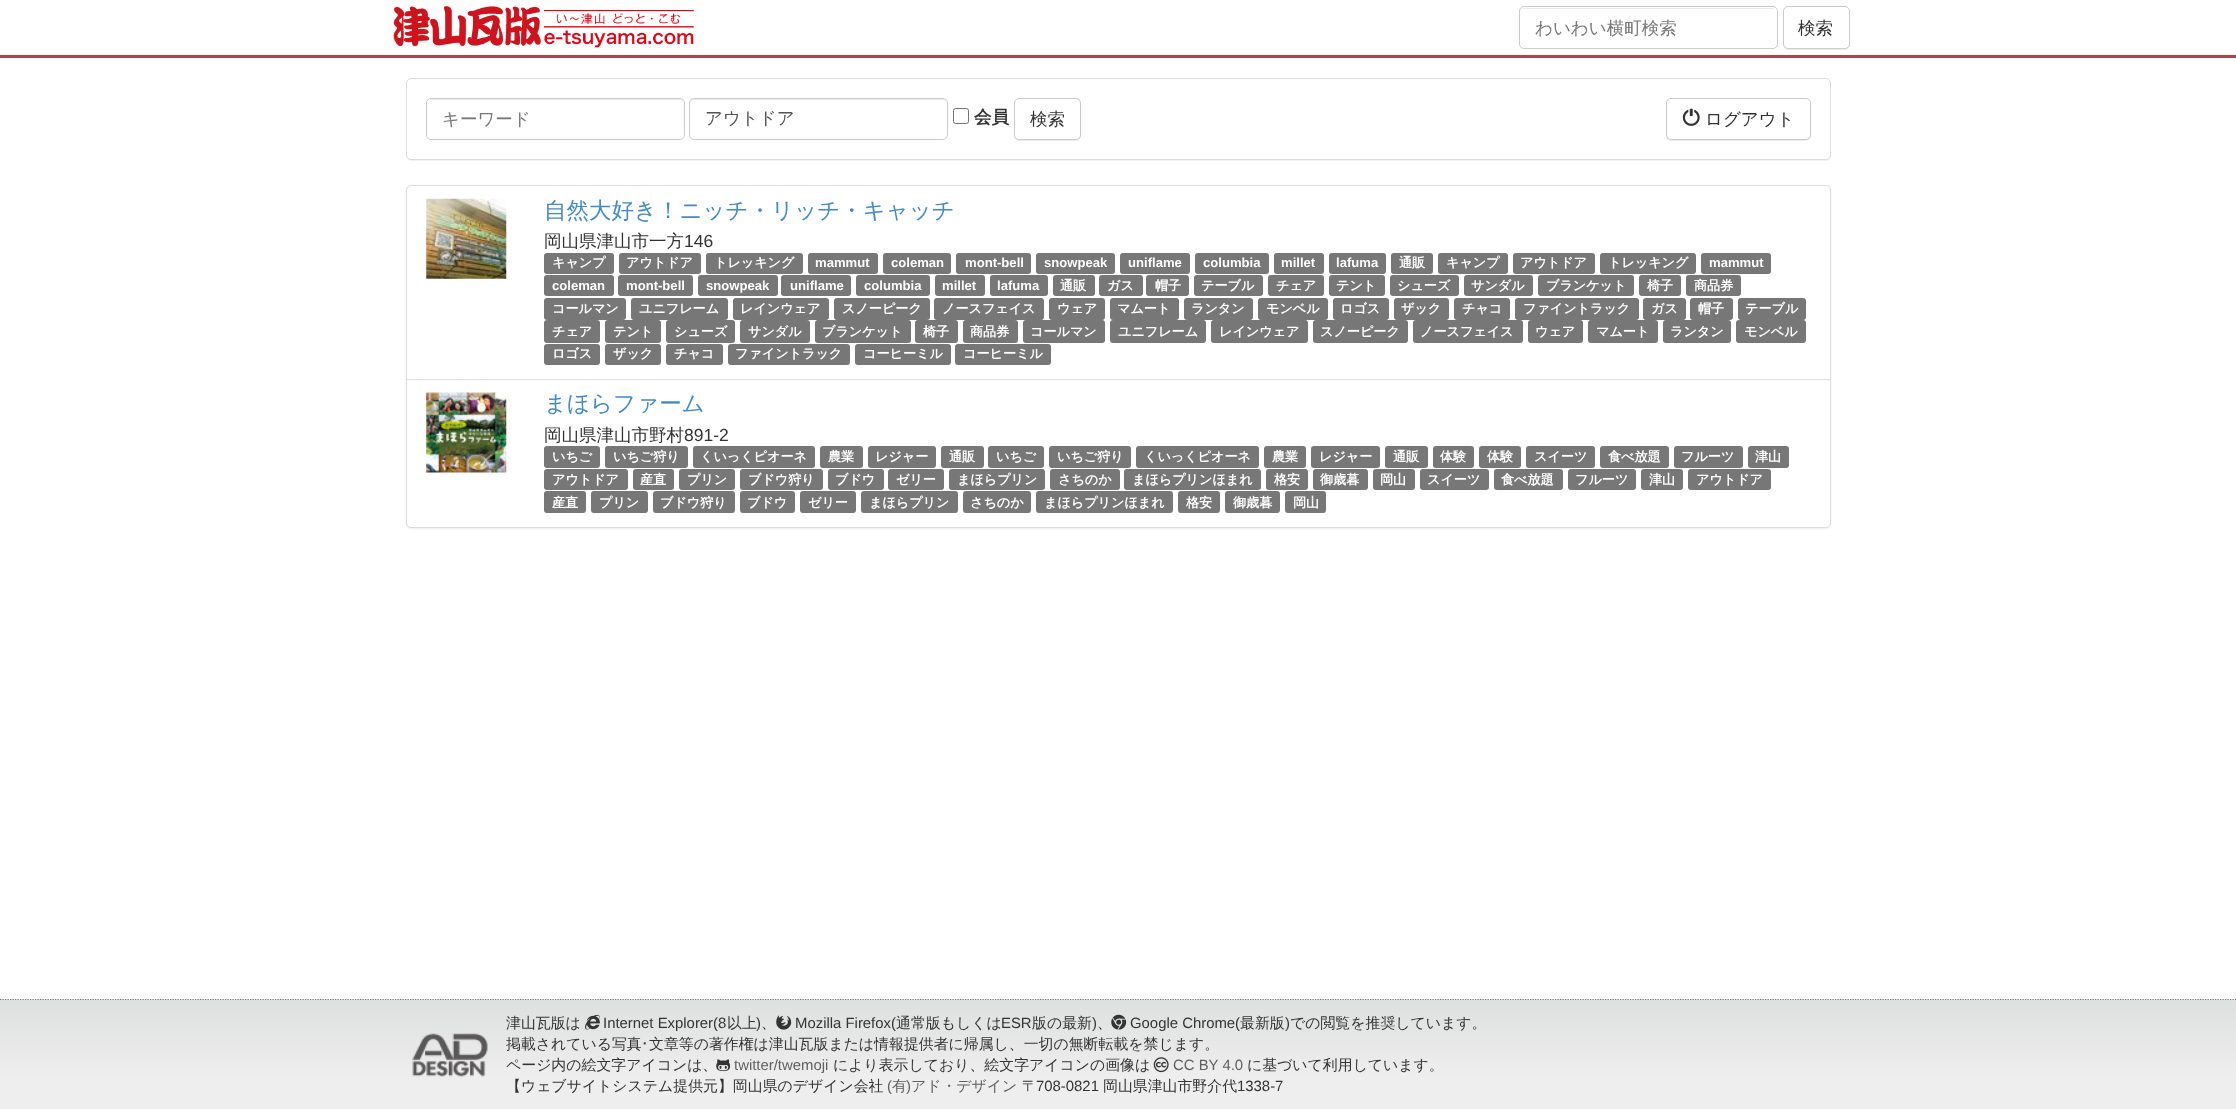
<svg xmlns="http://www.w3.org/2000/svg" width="2236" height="1109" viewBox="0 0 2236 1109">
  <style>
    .t1 { font: 500 17.5px WenQuanYi Zen Hei; fill: #777; }
    .t2 { font: 500 17.5px WenQuanYi Zen Hei; fill: #333; }
    .t3 { font: 500 17.5px WenQuanYi Zen Hei; fill: #555; }
    .t4 { font: bold 17.5px WenQuanYi Zen Hei; fill: #333; }
    .t5 { font: 500 22.5px WenQuanYi Zen Hei; fill: #428bca; }
    .t6 { font: 17.5px Liberation Sans; fill: #333; }
    .t7 { font: bold 13.1px WenQuanYi Zen Hei; fill: #fff; }
    .t8 { font: bold 13.1px Liberation Sans; fill: #fff; }
    .t9 { font: 500 14.9px WenQuanYi Zen Hei; fill: #333; }
    .t10 { font: 14.9px Liberation Sans; fill: #333; }
    .t11 { font: 14.9px IPAPGothic; fill: #333; }
    .t12 { font: 14.9px Liberation Sans; fill: #606060; }
    .t13 { font: 500 14.9px WenQuanYi Zen Hei; fill: #606060; }
  </style>
  <defs>
    <linearGradient id="g1" gradientUnits="userSpaceOnUse" x1="1118" y1="1000" x2="1118" y2="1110"><stop offset="0" stop-color="#dedfdf"/><stop offset="0.7" stop-color="#eeeeef"/></linearGradient>
  </defs>
  <rect width="100%" height="100%" fill="#fff"/>
  <rect x="0" y="55" width="2236" height="3" fill="#b5404b"/>
  <image x="393" y="6" width="301" height="42" href="images/1.png"/>
  <path d="M1524 9H1772C1774 9 1775 9 1776 10C1775 9 1774 8 1772 8H1524C1522 8 1520 10 1520 12C1520 10 1522 9 1524 9Z" fill="#ececec"/>
  <rect x="1519.5" y="6.5" width="258" height="42" rx="4.5" fill="none" stroke="#ccc"/>
  <text x="1535" y="34" class="t1">わいわい横町検索</text>
  <rect x="1783" y="8" width="67" height="42" rx="5" fill="#00000012" filter="blur(0.5px)"/>
  <rect x="1783.5" y="6.5" width="66" height="42" rx="4.5" fill="#fff" stroke="#ccc"/>
  <text x="1798" y="34" class="t2">検索</text>
  <rect x="406" y="79" width="1425" height="82" rx="5" fill="#0000000d" filter="blur(0.5px)"/>
  <rect x="406.5" y="78.5" width="1424" height="81" rx="4.5" fill="#fff" stroke="#ddd"/>
  <path d="M431 100H681L683 102L684 104V103C684 101 682 99 680 99H432C430 99 428 101 428 103V104C428 102 429 100 431 100Z" fill="#ececec"/>
  <rect x="426.5" y="98.5" width="258" height="41" rx="4.5" fill="none" stroke="#ccc"/>
  <text x="442" y="125" class="t1">キーワード</text>
  <path d="M694 100H942C945 100 946 102 946 104V103C946 101 944 99 942 99H694C692 99 690 101 690 103V104C690 102 692 100 694 100Z" fill="#ececec"/>
  <rect x="689.5" y="98.5" width="258" height="41" rx="4.5" fill="none" stroke="#ccc"/>
  <text x="705" y="124" class="t3">アウトドア</text>
  <rect x="953.5" y="108.5" width="15" height="15" rx="2" fill="none" stroke="#767676"/>
  <text x="974" y="123" class="t4">会員</text>
  <rect x="1014" y="99" width="67" height="42" rx="5" fill="#00000012" filter="blur(0.5px)"/>
  <rect x="1014.5" y="98.5" width="66" height="41" rx="4.5" fill="#fff" stroke="#ccc"/>
  <text x="1030" y="125" class="t2">検索</text>
  <rect x="1666" y="99" width="145" height="42" rx="5" fill="#00000012" filter="blur(0.5px)"/>
  <rect x="1666.5" y="98.5" width="144" height="41" rx="4.5" fill="#fff" stroke="#ccc"/>
  <image x="1682" y="108" width="18" height="18" href="images/2.png"/>
  <text x="1705" y="125" class="t2">ログアウト</text>
  <rect x="406" y="186" width="1425" height="343" rx="5" fill="#00000012" filter="blur(1px)"/>
  <path d="M411 185.5H1826C1828.5 185.5 1830.5 187.5 1830.5 190V379.5H406.5V190C406.5 187.5 408.5 185.5 411 185.5Z" fill="#fff" stroke="#ddd"/>
  <image x="426" y="198" width="81" height="81" href="images/3.png"/>
  <text x="544" y="218" class="t5">自然大好き！ニッチ・リッチ・キャッチ</text>
  <text x="544" y="247" class="t2">岡山県津山市一方</text>
  <text x="684" y="247" class="t6">146</text>
  <rect x="544" y="253" width="70" height="21" rx="3" fill="#777"/>
  <text x="552" y="267" class="t7">キャンプ</text>
  <rect x="619" y="253" width="82" height="21" rx="3" fill="#777"/>
  <text x="626" y="267" class="t7">アウトドア</text>
  <rect x="706" y="253" width="97" height="21" rx="3" fill="#777"/>
  <text x="714" y="267" class="t7">トレッキング</text>
  <rect x="808" y="253" width="70" height="21" rx="3" fill="#777"/>
  <text x="815" y="267" class="t8">mammut</text>
  <rect x="883" y="253" width="68" height="21" rx="3" fill="#777"/>
  <text x="891" y="267" class="t8">coleman</text>
  <rect x="956" y="253" width="75" height="21" rx="3" fill="#777"/>
  <text x="965" y="267" class="t8">mont-bell</text>
  <rect x="1036" y="253" width="79" height="21" rx="3" fill="#777"/>
  <text x="1044" y="267" class="t8">snowpeak</text>
  <rect x="1120" y="253" width="70" height="21" rx="3" fill="#777"/>
  <text x="1128" y="267" class="t8">uniflame</text>
  <rect x="1195" y="253" width="74" height="21" rx="3" fill="#777"/>
  <text x="1203" y="267" class="t8">columbia</text>
  <rect x="1274" y="253" width="50" height="21" rx="3" fill="#777"/>
  <text x="1281" y="267" class="t8">millet</text>
  <rect x="1329" y="253" width="57" height="21" rx="3" fill="#777"/>
  <text x="1336" y="267" class="t8">lafuma</text>
  <rect x="1391" y="253" width="42" height="21" rx="3" fill="#777"/>
  <text x="1399" y="267" class="t7">通販</text>
  <rect x="1438" y="253" width="70" height="21" rx="3" fill="#777"/>
  <text x="1446" y="267" class="t7">キャンプ</text>
  <rect x="1513" y="253" width="82" height="21" rx="3" fill="#777"/>
  <text x="1520" y="267" class="t7">アウトドア</text>
  <rect x="1600" y="253" width="96" height="21" rx="3" fill="#777"/>
  <text x="1608" y="267" class="t7">トレッキング</text>
  <rect x="1701" y="253" width="70" height="21" rx="3" fill="#777"/>
  <text x="1709" y="267" class="t8">mammut</text>
  <rect x="544" y="275" width="70" height="21" rx="3" fill="#777"/>
  <text x="552" y="290" class="t8">coleman</text>
  <rect x="618" y="275" width="75" height="21" rx="3" fill="#777"/>
  <text x="626" y="290" class="t8">mont-bell</text>
  <rect x="698" y="275" width="80" height="21" rx="3" fill="#777"/>
  <text x="706" y="290" class="t8">snowpeak</text>
  <rect x="781" y="275" width="70" height="21" rx="3" fill="#777"/>
  <text x="790" y="290" class="t8">uniflame</text>
  <rect x="856" y="275" width="74" height="21" rx="3" fill="#777"/>
  <text x="864" y="290" class="t8">columbia</text>
  <rect x="935" y="275" width="50" height="21" rx="3" fill="#777"/>
  <text x="942" y="290" class="t8">millet</text>
  <rect x="990" y="275" width="58" height="21" rx="3" fill="#777"/>
  <text x="997" y="290" class="t8">lafuma</text>
  <rect x="1053" y="275" width="42" height="21" rx="3" fill="#777"/>
  <text x="1060" y="290" class="t7">通販</text>
  <rect x="1099" y="275" width="44" height="21" rx="3" fill="#777"/>
  <text x="1107" y="290" class="t7">ガス</text>
  <rect x="1146" y="275" width="43" height="21" rx="3" fill="#777"/>
  <text x="1155" y="290" class="t7">帽子</text>
  <rect x="1194" y="275" width="69" height="21" rx="3" fill="#777"/>
  <text x="1201" y="290" class="t7">テーブル</text>
  <rect x="1268" y="275" width="56" height="21" rx="3" fill="#777"/>
  <text x="1276" y="290" class="t7">チェア</text>
  <rect x="1329" y="275" width="56" height="21" rx="3" fill="#777"/>
  <text x="1336" y="290" class="t7">テント</text>
  <rect x="1390" y="275" width="69" height="21" rx="3" fill="#777"/>
  <text x="1397" y="290" class="t7">シューズ</text>
  <rect x="1464" y="275" width="69" height="21" rx="3" fill="#777"/>
  <text x="1471" y="290" class="t7">サンダル</text>
  <rect x="1538" y="275" width="96" height="21" rx="3" fill="#777"/>
  <text x="1546" y="290" class="t7">ブランケット</text>
  <rect x="1639" y="275" width="42" height="21" rx="3" fill="#777"/>
  <text x="1647" y="290" class="t7">椅子</text>
  <rect x="1686" y="275" width="55" height="21" rx="3" fill="#777"/>
  <text x="1694" y="290" class="t7">商品券</text>
  <rect x="544" y="298" width="82" height="22" rx="3" fill="#777"/>
  <text x="552" y="313" class="t7">コールマン</text>
  <rect x="631" y="298" width="97" height="22" rx="3" fill="#777"/>
  <text x="639" y="313" class="t7">ユニフレーム</text>
  <rect x="733" y="298" width="96" height="22" rx="3" fill="#777"/>
  <text x="740" y="313" class="t7">レインウェア</text>
  <rect x="834" y="298" width="96" height="22" rx="3" fill="#777"/>
  <text x="842" y="313" class="t7">スノーピーク</text>
  <rect x="934" y="298" width="110" height="22" rx="3" fill="#777"/>
  <text x="942" y="313" class="t7">ノースフェイス</text>
  <rect x="1049" y="298" width="56" height="22" rx="3" fill="#777"/>
  <text x="1057" y="313" class="t7">ウェア</text>
  <rect x="1110" y="298" width="69" height="22" rx="3" fill="#777"/>
  <text x="1117" y="313" class="t7">マムート</text>
  <rect x="1184" y="298" width="69" height="22" rx="3" fill="#777"/>
  <text x="1191" y="313" class="t7">ランタン</text>
  <rect x="1258" y="298" width="70" height="22" rx="3" fill="#777"/>
  <text x="1266" y="313" class="t7">モンベル</text>
  <rect x="1333" y="298" width="56" height="22" rx="3" fill="#777"/>
  <text x="1340" y="313" class="t7">ロゴス</text>
  <rect x="1394" y="298" width="55" height="22" rx="3" fill="#777"/>
  <text x="1401" y="313" class="t7">ザック</text>
  <rect x="1454" y="298" width="56" height="22" rx="3" fill="#777"/>
  <text x="1462" y="313" class="t7">チャコ</text>
  <rect x="1515" y="298" width="124" height="22" rx="3" fill="#777"/>
  <text x="1523" y="313" class="t7">ファイントラック</text>
  <rect x="1643" y="298" width="43" height="22" rx="3" fill="#777"/>
  <text x="1651" y="313" class="t7">ガス</text>
  <rect x="1690" y="298" width="43" height="22" rx="3" fill="#777"/>
  <text x="1698" y="313" class="t7">帽子</text>
  <rect x="1738" y="298" width="68" height="22" rx="3" fill="#777"/>
  <text x="1745" y="313" class="t7">テーブル</text>
  <rect x="544" y="320" width="56" height="23" rx="3" fill="#777"/>
  <text x="552" y="336" class="t7">チェア</text>
  <rect x="605" y="320" width="56" height="23" rx="3" fill="#777"/>
  <text x="613" y="336" class="t7">テント</text>
  <rect x="666" y="320" width="69" height="23" rx="3" fill="#777"/>
  <text x="674" y="336" class="t7">シューズ</text>
  <rect x="740" y="320" width="70" height="23" rx="3" fill="#777"/>
  <text x="748" y="336" class="t7">サンダル</text>
  <rect x="815" y="320" width="96" height="23" rx="3" fill="#777"/>
  <text x="822" y="336" class="t7">ブランケット</text>
  <rect x="915" y="320" width="43" height="23" rx="3" fill="#777"/>
  <text x="923" y="336" class="t7">椅子</text>
  <rect x="963" y="320" width="55" height="23" rx="3" fill="#777"/>
  <text x="970" y="336" class="t7">商品券</text>
  <rect x="1023" y="320" width="82" height="23" rx="3" fill="#777"/>
  <text x="1030" y="336" class="t7">コールマン</text>
  <rect x="1110" y="320" width="96" height="23" rx="3" fill="#777"/>
  <text x="1118" y="336" class="t7">ユニフレーム</text>
  <rect x="1211" y="320" width="97" height="23" rx="3" fill="#777"/>
  <text x="1219" y="336" class="t7">レインウェア</text>
  <rect x="1313" y="320" width="95" height="23" rx="3" fill="#777"/>
  <text x="1320" y="336" class="t7">スノーピーク</text>
  <rect x="1413" y="320" width="110" height="23" rx="3" fill="#777"/>
  <text x="1420" y="336" class="t7">ノースフェイス</text>
  <rect x="1528" y="320" width="55" height="23" rx="3" fill="#777"/>
  <text x="1535" y="336" class="t7">ウェア</text>
  <rect x="1588" y="320" width="70" height="23" rx="3" fill="#777"/>
  <text x="1596" y="336" class="t7">マムート</text>
  <rect x="1663" y="320" width="68" height="23" rx="3" fill="#777"/>
  <text x="1670" y="336" class="t7">ランタン</text>
  <rect x="1736" y="320" width="70" height="23" rx="3" fill="#777"/>
  <text x="1744" y="336" class="t7">モンベル</text>
  <rect x="544" y="344" width="56" height="21" rx="3" fill="#777"/>
  <text x="552" y="358" class="t7">ロゴス</text>
  <rect x="605" y="344" width="56" height="21" rx="3" fill="#777"/>
  <text x="613" y="358" class="t7">ザック</text>
  <rect x="666" y="344" width="57" height="21" rx="3" fill="#777"/>
  <text x="674" y="358" class="t7">チャコ</text>
  <rect x="728" y="344" width="122" height="21" rx="3" fill="#777"/>
  <text x="735" y="358" class="t7">ファイントラック</text>
  <rect x="855" y="344" width="96" height="21" rx="3" fill="#777"/>
  <text x="863" y="358" class="t7">コーヒーミル</text>
  <rect x="955" y="344" width="96" height="21" rx="3" fill="#777"/>
  <text x="963" y="358" class="t7">コーヒーミル</text>
  <path d="M406.5 379.5H1830.5V523C1830.5 525.5 1828.5 527.5 1826 527.5H411C408.5 527.5 406.5 525.5 406.5 523Z" fill="#fff" stroke="#ddd"/>
  <image x="426" y="392" width="81" height="81" href="images/4.png"/>
  <text x="544" y="411" class="t5">まほらファーム</text>
  <text x="544" y="441" class="t2">岡山県津山市野村</text>
  <text x="684" y="441" class="t6">891-2</text>
  <rect x="544" y="446" width="56" height="22" rx="3" fill="#777"/>
  <text x="552" y="461" class="t7">いちご</text>
  <rect x="605" y="446" width="83" height="22" rx="3" fill="#777"/>
  <text x="613" y="461" class="t7">いちご狩り</text>
  <rect x="693" y="446" width="122" height="22" rx="3" fill="#777"/>
  <text x="700" y="461" class="t7">くいっくピオーネ</text>
  <rect x="820" y="446" width="43" height="22" rx="3" fill="#777"/>
  <text x="828" y="461" class="t7">農業</text>
  <rect x="868" y="446" width="68" height="22" rx="3" fill="#777"/>
  <text x="875" y="461" class="t7">レジャー</text>
  <rect x="941" y="446" width="43" height="22" rx="3" fill="#777"/>
  <text x="949" y="461" class="t7">通販</text>
  <rect x="988" y="446" width="56" height="22" rx="3" fill="#777"/>
  <text x="996" y="461" class="t7">いちご</text>
  <rect x="1049" y="446" width="82" height="22" rx="3" fill="#777"/>
  <text x="1057" y="461" class="t7">いちご狩り</text>
  <rect x="1136" y="446" width="123" height="22" rx="3" fill="#777"/>
  <text x="1144" y="461" class="t7">くいっくピオーネ</text>
  <rect x="1264" y="446" width="42" height="22" rx="3" fill="#777"/>
  <text x="1272" y="461" class="t7">農業</text>
  <rect x="1311" y="446" width="69" height="22" rx="3" fill="#777"/>
  <text x="1319" y="461" class="t7">レジャー</text>
  <rect x="1385" y="446" width="43" height="22" rx="3" fill="#777"/>
  <text x="1393" y="461" class="t7">通販</text>
  <rect x="1433" y="446" width="41" height="22" rx="3" fill="#777"/>
  <text x="1440" y="461" class="t7">体験</text>
  <rect x="1479" y="446" width="42" height="22" rx="3" fill="#777"/>
  <text x="1487" y="461" class="t7">体験</text>
  <rect x="1526" y="446" width="69" height="22" rx="3" fill="#777"/>
  <text x="1534" y="461" class="t7">スイーツ</text>
  <rect x="1600" y="446" width="69" height="22" rx="3" fill="#777"/>
  <text x="1608" y="461" class="t7">食べ放題</text>
  <rect x="1674" y="446" width="69" height="22" rx="3" fill="#777"/>
  <text x="1681" y="461" class="t7">フルーツ</text>
  <rect x="1748" y="446" width="41" height="22" rx="3" fill="#777"/>
  <text x="1755" y="461" class="t7">津山</text>
  <rect x="544" y="469" width="84" height="21" rx="3" fill="#777"/>
  <text x="552" y="484" class="t7">アウトドア</text>
  <rect x="633" y="469" width="41" height="21" rx="3" fill="#777"/>
  <text x="640" y="484" class="t7">産直</text>
  <rect x="679" y="469" width="56" height="21" rx="3" fill="#777"/>
  <text x="687" y="484" class="t7">プリン</text>
  <rect x="740" y="469" width="83" height="21" rx="3" fill="#777"/>
  <text x="748" y="484" class="t7">ブドウ狩り</text>
  <rect x="828" y="469" width="56" height="21" rx="3" fill="#777"/>
  <text x="835" y="484" class="t7">ブドウ</text>
  <rect x="888" y="469" width="56" height="21" rx="3" fill="#777"/>
  <text x="896" y="484" class="t7">ゼリー</text>
  <rect x="949" y="469" width="96" height="21" rx="3" fill="#777"/>
  <text x="957" y="484" class="t7">まほらプリン</text>
  <rect x="1050" y="469" width="70" height="21" rx="3" fill="#777"/>
  <text x="1058" y="484" class="t7">さちのか</text>
  <rect x="1124" y="469" width="137" height="21" rx="3" fill="#777"/>
  <text x="1132" y="484" class="t7">まほらプリンほまれ</text>
  <rect x="1266" y="469" width="42" height="21" rx="3" fill="#777"/>
  <text x="1274" y="484" class="t7">格安</text>
  <rect x="1313" y="469" width="55" height="21" rx="3" fill="#777"/>
  <text x="1320" y="484" class="t7">御歳暮</text>
  <rect x="1373" y="469" width="42" height="21" rx="3" fill="#777"/>
  <text x="1380" y="484" class="t7">岡山</text>
  <rect x="1420" y="469" width="69" height="21" rx="3" fill="#777"/>
  <text x="1427" y="484" class="t7">スイーツ</text>
  <rect x="1494" y="469" width="69" height="21" rx="3" fill="#777"/>
  <text x="1501" y="484" class="t7">食べ放題</text>
  <rect x="1568" y="469" width="68" height="21" rx="3" fill="#777"/>
  <text x="1575" y="484" class="t7">フルーツ</text>
  <rect x="1641" y="469" width="42" height="21" rx="3" fill="#777"/>
  <text x="1649" y="484" class="t7">津山</text>
  <rect x="1688" y="469" width="83" height="21" rx="3" fill="#777"/>
  <text x="1696" y="484" class="t7">アウトドア</text>
  <rect x="544" y="491" width="42" height="22" rx="3" fill="#777"/>
  <text x="552" y="507" class="t7">産直</text>
  <rect x="591" y="491" width="57" height="22" rx="3" fill="#777"/>
  <text x="599" y="507" class="t7">プリン</text>
  <rect x="653" y="491" width="82" height="22" rx="3" fill="#777"/>
  <text x="660" y="507" class="t7">ブドウ狩り</text>
  <rect x="740" y="491" width="55" height="22" rx="3" fill="#777"/>
  <text x="747" y="507" class="t7">ブドウ</text>
  <rect x="800" y="491" width="56" height="22" rx="3" fill="#777"/>
  <text x="808" y="507" class="t7">ゼリー</text>
  <rect x="861" y="491" width="97" height="22" rx="3" fill="#777"/>
  <text x="869" y="507" class="t7">まほらプリン</text>
  <rect x="963" y="491" width="68" height="22" rx="3" fill="#777"/>
  <text x="970" y="507" class="t7">さちのか</text>
  <rect x="1036" y="491" width="137" height="22" rx="3" fill="#777"/>
  <text x="1044" y="507" class="t7">まほらプリンほまれ</text>
  <rect x="1178" y="491" width="42" height="22" rx="3" fill="#777"/>
  <text x="1186" y="507" class="t7">格安</text>
  <rect x="1225" y="491" width="55" height="22" rx="3" fill="#777"/>
  <text x="1233" y="507" class="t7">御歳暮</text>
  <rect x="1285" y="491" width="41" height="22" rx="3" fill="#777"/>
  <text x="1293" y="507" class="t7">岡山</text>
  <rect x="1" y="999" width="2234" height="1" fill="#eee"/>
  <path d="M0 999.5H2236" fill="none" stroke="#777" stroke-width="1.2" stroke-dasharray="1.25 1.25"/>
  <rect x="0" y="1000" width="2236" height="109" fill="url(#g1)"/>
  <image x="412" y="1033" width="76" height="44" href="images/5.png"/>
  <text x="506" y="1028" class="t9">津山瓦版は</text>
  <image x="585" y="1014" width="15" height="16" href="images/6.png"/>
  <text x="603" y="1028" class="t10">Internet Explorer(8</text>
  <text x="727" y="1028" class="t9">以上</text>
  <text x="756" y="1028" class="t10">)</text>
  <text x="761" y="1028" class="t9">、</text>
  <image x="776" y="1015" width="16" height="15" href="images/7.png"/>
  <text x="795" y="1028" class="t10">Mozilla Firefox(</text>
  <text x="896" y="1028" class="t9">通常版もしくは</text>
  <text x="1001" y="1028" class="t10">ESR</text>
  <text x="1032" y="1028" class="t9">版の最新</text>
  <text x="1092" y="1028" class="t10">)</text>
  <text x="1097" y="1028" class="t9">、</text>
  <image x="1111" y="1014" width="16" height="16" href="images/8.png"/>
  <text x="1130" y="1028" class="t10">Google Chrome(</text>
  <text x="1240" y="1028" class="t9">最新版</text>
  <text x="1285" y="1028" class="t10">)</text>
  <text x="1290" y="1028" class="t9">での閲覧を推奨しています。</text>
  <text x="506" y="1049" class="t9">掲載されている写真</text>
  <text x="641" y="1049" class="t11">･</text>
  <text x="649" y="1049" class="t9">文章等の著作権は津山瓦版または情報提供者に帰属し、一切の無断転載を禁じます。</text>
  <text x="506" y="1070" class="t9">ページ内の絵文字アイコンは、</text>
  <image x="716" y="1059" width="15" height="13" href="images/9.png"/>
  <text x="734" y="1070" class="t12">twitter/twemoji</text>
  <text x="833" y="1070" class="t9">により表示しており、絵文字アイコンの画像は</text>
  <image x="1153" y="1057" width="16" height="16" href="images/10.png"/>
  <text x="1173" y="1070" class="t12">CC BY 4.0</text>
  <text x="1247" y="1070" class="t9">に基づいて利用しています。</text>
  <text x="506" y="1091" class="t9">【ウェブサイトシステム提供元】岡山県のデザイン会社</text>
  <text x="887" y="1091" class="t12">(</text>
  <text x="892" y="1091" class="t13">有</text>
  <text x="906" y="1091" class="t12">)</text>
  <text x="911" y="1091" class="t13">アド・デザイン</text>
  <text x="1022" y="1091" class="t9">〒</text>
  <text x="1036" y="1091" class="t10">708-0821</text>
  <text x="1103" y="1091" class="t9">岡山県津山市野介代</text>
  <text x="1237" y="1091" class="t10">1338-7</text>
</svg>
